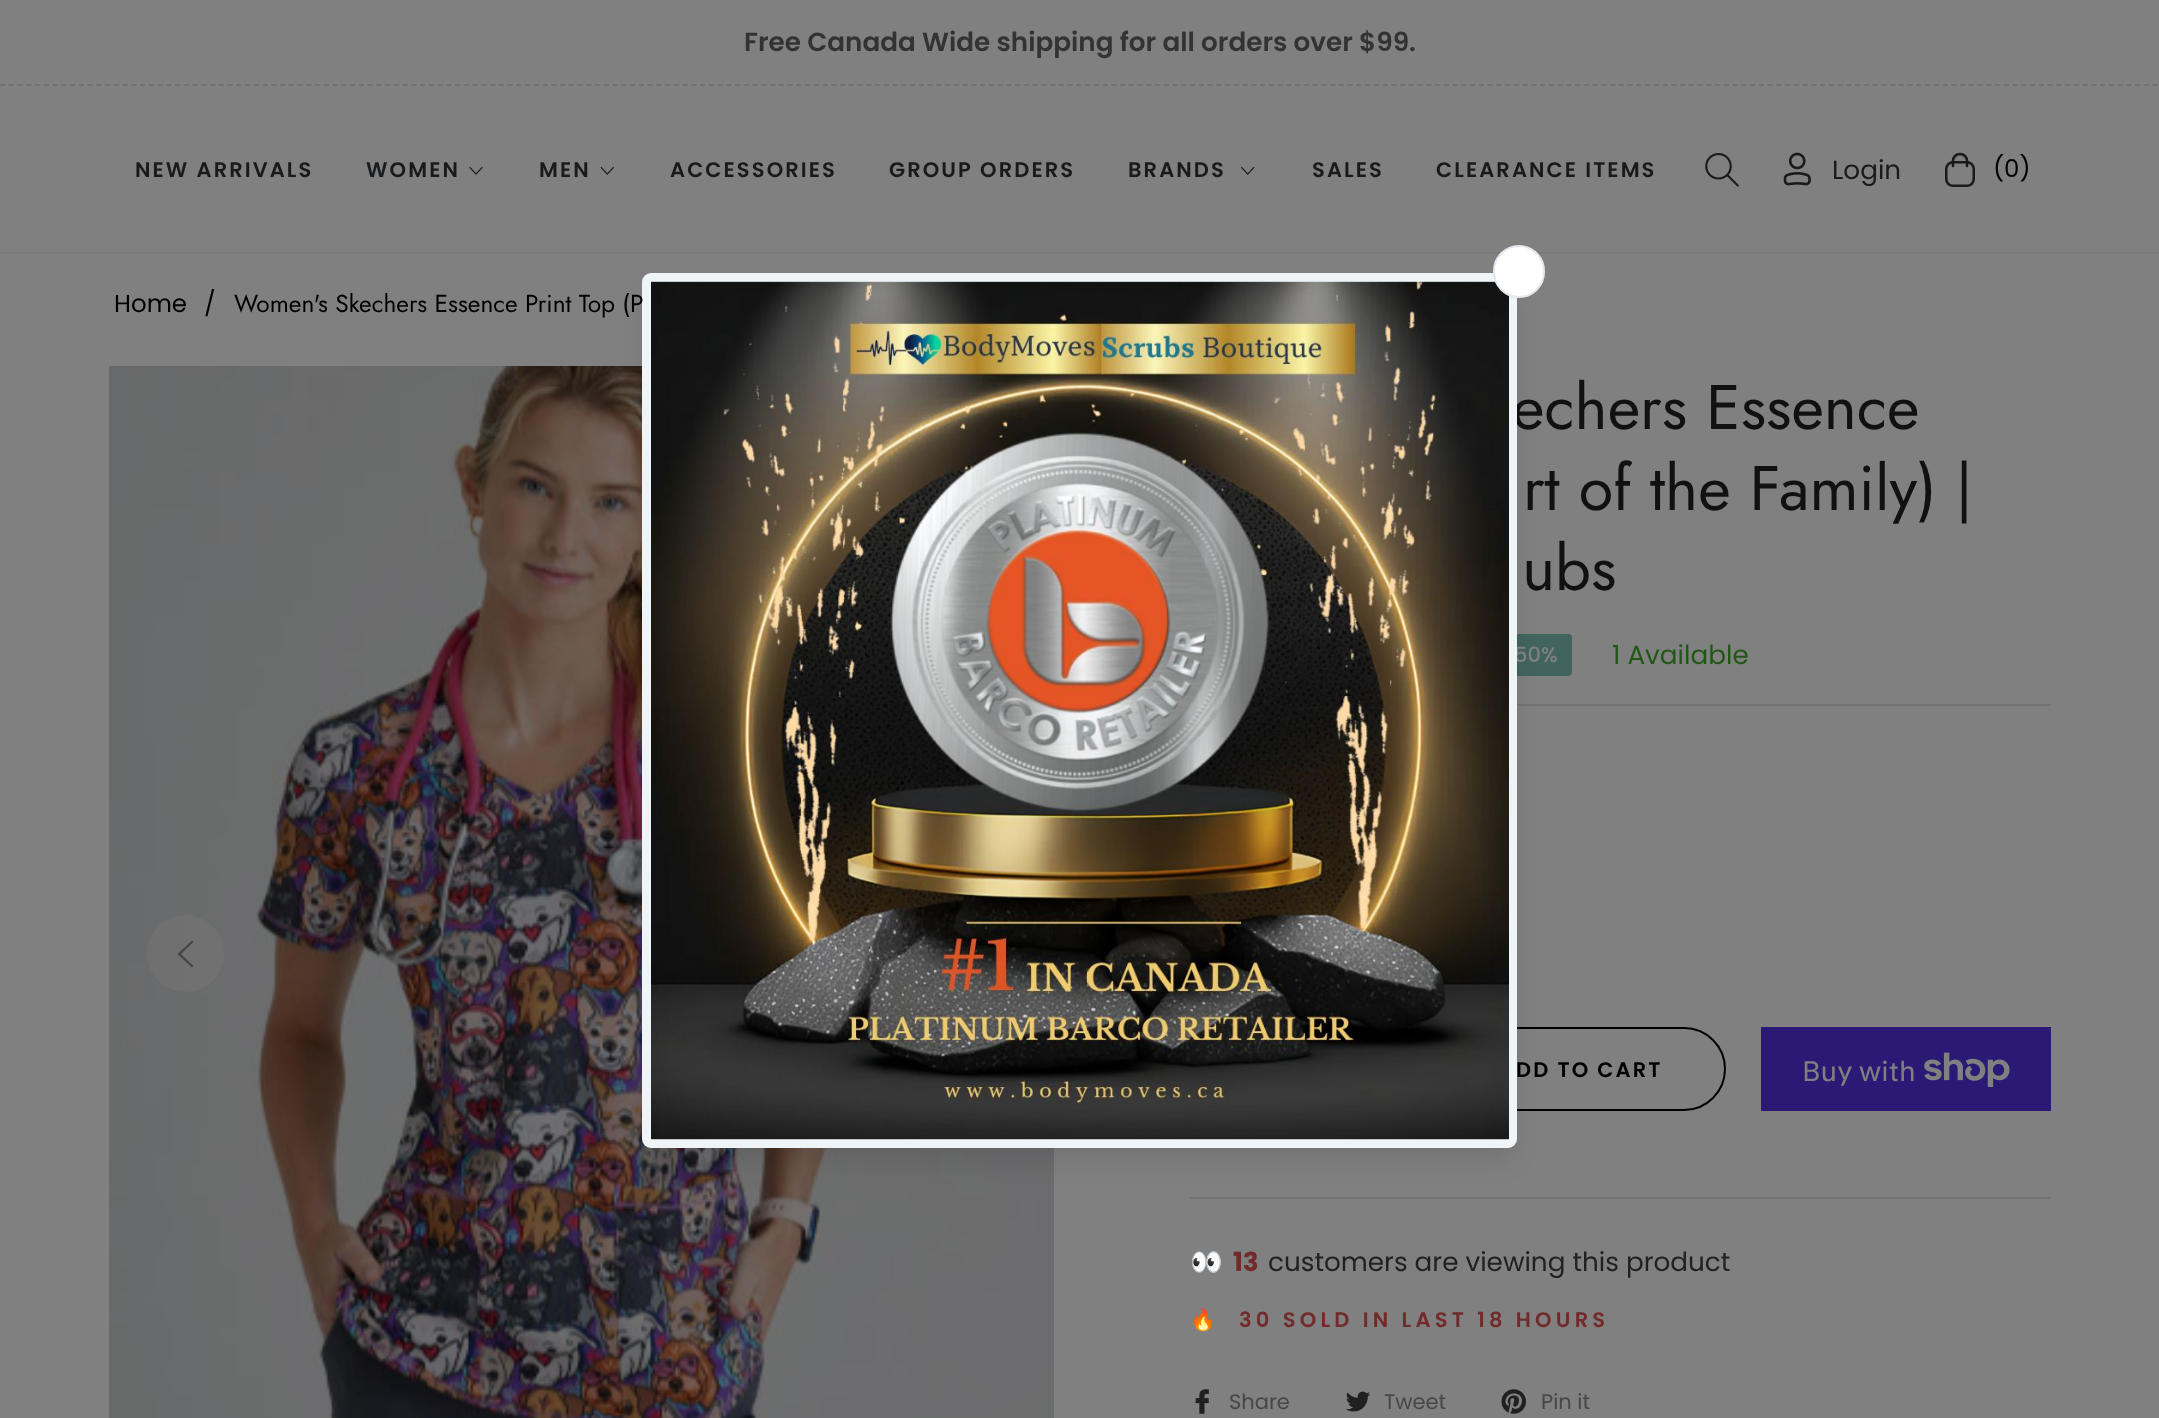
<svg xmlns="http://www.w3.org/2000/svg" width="2159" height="1418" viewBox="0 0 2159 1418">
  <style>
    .t1 { font: 600 26.25px Poppins; fill: #333; }
    .t2 { font: 600 21px Poppins; letter-spacing: 2.1px; fill: #181a1b; }
    .t3 { font: 26.25px Poppins; fill: #181a1b; }
    .t4 { font: 24.5px Poppins; fill: #000; }
    .t5 { font: 63px Jost; fill: #111; }
    .t6 { font: 500 21px Poppins; fill: #808080; }
    .t7 { font: 24.5px Jost; fill: #000; }
    .t8 { font: 26.25px Poppins; fill: #225815; }
    .t9 { font: 600 21px Poppins; letter-spacing: 2.1px; fill: #000; }
    .t10 { font: 28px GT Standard; fill: #808080; }
    .t11 { font: 26.25px Noto Color Emoji; fill: #212121; }
    .t12 { font: bold 26.25px Poppins; fill: #722a2a; }
    .t13 { font: 26.25px Poppins; fill: #212121; }
    .t14 { font: bold 21px Noto Color Emoji; letter-spacing: 4.2px; fill: #722a2a; }
    .t15 { font: 600 21px Poppins; letter-spacing: 4.2px; fill: #722a2a; }
    .t16 { font: 21px Poppins; fill: #474747; }
  </style>
  <defs>
    <clipPath id="clip1"><rect x="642" y="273" width="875" height="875"/></clipPath>
  </defs>
  <rect width="100%" height="100%" fill="#808080"/>
  <path d="M0 85H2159.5" fill="none" stroke="#717171" stroke-width="1.8" stroke-dasharray="5.25 3.5"/>
  <text x="744" y="51" class="t1">Free Canada Wide shipping for all orders over $99.</text>
  <text x="135" y="177" class="t2">NEW ARRIVALS</text>
  <text x="366" y="177" class="t2">WOMEN</text>
  <image x="469" y="166" width="14" height="9" href="images/1.png"/>
  <text x="539" y="177" class="t2">MEN</text>
  <image x="600" y="166" width="14" height="9" href="images/2.png"/>
  <text x="670" y="177" class="t2">ACCESSORIES</text>
  <text x="889" y="177" class="t2">GROUP ORDERS</text>
  <text x="1128" y="177" class="t2">BRANDS</text>
  <image x="1241" y="166" width="14" height="9" href="images/3.png"/>
  <text x="1312" y="177" class="t2">SALES</text>
  <text x="1436" y="177" class="t2">CLEARANCE ITEMS</text>
  <image x="1705" y="152" width="34" height="35" href="images/4.png"/>
  <image x="1783" y="152" width="28" height="34" href="images/5.png"/>
  <text x="1832" y="179" class="t3">Login</text>
  <rect x="1946.25" y="162.25" width="27.5" height="23.5" rx="6.75" fill="none" stroke="#181a1b" stroke-width="2.5"/>
  <path d="M1967 166V161C1967 157 1964 154 1960 154C1956 154 1953 157 1953 161V166" fill="none" stroke="#181a1b" stroke-width="2.6" stroke-linecap="round"/>
  <text x="1993" y="177" class="t4">(0)</text>
  <image x="109" y="366" width="945" height="1052" href="images/7.png"/>
  <rect x="1488" y="634" width="84" height="42" rx="4" fill="#42645e"/>
  <rect x="1517" y="704" width="534" height="2" fill="#737373"/>
  <rect x="1436" y="1028" width="289" height="82" rx="41" fill="none" stroke="#000" stroke-width="2"/>
  <rect x="1190" y="1197" width="861" height="2" fill="#737373"/>
  <rect x="648" y="296" width="864" height="864" rx="4" fill="#0000001a" filter="blur(13px)"/>
  <rect x="0" y="252" width="2159" height="2" fill="#7a7875"/>
  <g clip-path="url(#clip1)">
    <rect x="648" y="278" width="864" height="865" rx="4" fill="#0000001f" filter="blur(17.5px)"/>
  </g>
  <text x="1512" y="429" class="t5">echers Essence</text>
  <text x="1514" y="662" class="t6">50%</text>
  <rect x="642" y="273" width="875" height="875" rx="9" fill="#eff4f7"/>
  <image x="651" y="281" width="858" height="859" href="images/6.png"/>
  <rect x="1494" y="246" width="50" height="51" rx="25" fill="#fff" stroke="#e2e8f0" stroke-width="2"/>
  <text x="114" y="312" class="t4">Home</text>
  <text x="204" y="312" class="t4">/</text>
  <text x="234" y="312" class="t7">Women's Skechers Essence Print Top (P</text>
  <circle cx="185.5" cy="953.5" r="38.5" fill="#7e7c7b59"/>
  <path d="M193.5 966L192 967.5L177.5 954L192 940.5L193.5 942L181 954Z" fill="#454646"/>
  <text x="1523" y="510" class="t5">rt of the Family) |</text>
  <text x="1522" y="590" class="t5">ubs</text>
  <text x="1612" y="664" class="t8">1 Available</text>
  <text x="1516" y="1077" class="t9">DD TO CART</text>
  <rect x="1761" y="1027" width="290" height="84" fill="#2a1a76"/>
  <text x="1802" y="1081" class="t10">Buy with</text>
  <image x="1924" y="1052" width="86" height="35" href="images/8.png"/>
  <text x="1190" y="1271" class="t11">👀</text>
  <text x="1233" y="1271" class="t12">13</text>
  <text x="1268" y="1271" class="t13">customers are viewing this product</text>
  <text x="1190" y="1327" class="t14">🔥</text>
  <text x="1239" y="1327" class="t15">30 SOLD IN LAST 18 HOURS</text>
  <image x="1195" y="1389" width="14" height="25" href="images/9.png"/>
  <text x="1229" y="1409" class="t16">Share</text>
  <image x="1346" y="1391" width="25" height="21" href="images/10.png"/>
  <text x="1384" y="1409" class="t16">Tweet</text>
  <image x="1501" y="1389" width="25" height="25" href="images/11.png"/>
  <text x="1541" y="1409" class="t16">Pin it</text>
</svg>
